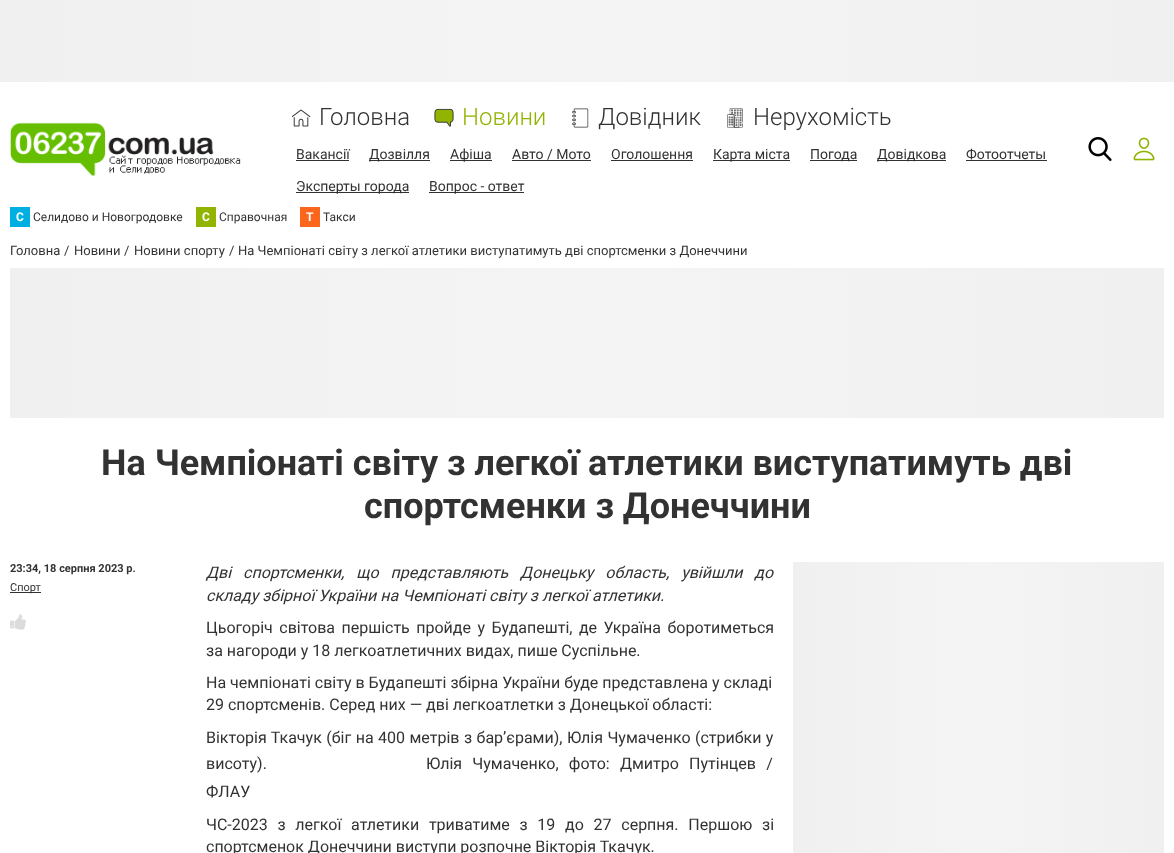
<svg xmlns="http://www.w3.org/2000/svg" width="1174" height="853" viewBox="0 0 1174 853">
  <style>
    .t1 { font: 300 24px Roboto; fill: #323232; }
    .t2 { font: 300 24px Roboto; fill: #90b400; }
    .t3 { font: 14px Roboto; fill: #323232; }
    .t4 { font: bold 12px Roboto; fill: #fff; }
    .t5 { font: 12px Roboto; fill: #323232; }
    .t6 { font: 13px Roboto; fill: #323232; }
    .t7 { font: bold 36px Roboto; fill: #323232; }
    .t8 { font: bold 11px Roboto; fill: #323232; }
    .t9 { font: 11px Roboto; fill: #323232; }
    .t10 { font: italic 16px Roboto; fill: #323232; }
    .t11 { font: 16px Roboto; fill: #323232; }
  </style>
  <defs>
    <linearGradient id="g1" gradientUnits="userSpaceOnUse" x1="0" y1="41" x2="1174" y2="41"><stop offset="0" stop-color="#f0f0f0"/><stop offset="0.5" stop-color="#f4f4f4"/><stop offset="1" stop-color="#f0f0f0"/></linearGradient>
    <linearGradient id="g2" gradientUnits="userSpaceOnUse" x1="10" y1="343" x2="1164" y2="343"><stop offset="0" stop-color="#f0f0f0"/><stop offset="0.5" stop-color="#f4f4f4"/><stop offset="1" stop-color="#f0f0f0"/></linearGradient>
    <linearGradient id="g3" gradientUnits="userSpaceOnUse" x1="793" y1="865" x2="1164" y2="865"><stop offset="0" stop-color="#f0f0f0"/><stop offset="0.5" stop-color="#f4f4f4"/><stop offset="1" stop-color="#f0f0f0"/></linearGradient>
  </defs>
  <rect width="100%" height="100%" fill="#fff"/>
  <rect x="0" y="0" width="1174" height="82" fill="url(#g1)"/>
  <image x="10" y="122" width="231" height="55" href="images/1.png"/>
  <image x="292" y="109" width="19" height="18" href="images/2.png"/>
  <text x="319" y="125" class="t1">Головна</text>
  <image x="434" y="108" width="20" height="19" href="images/3.png"/>
  <text x="462" y="125" class="t2">Новини</text>
  <image x="572" y="108" width="17" height="20" href="images/4.png"/>
  <text x="598" y="125" class="t1">Довідник</text>
  <image x="727" y="108" width="16" height="20" href="images/5.png"/>
  <text x="753" y="125" class="t1">Нерухомість</text>
  <text x="296" y="159" class="t3">Вакансії</text>
  <rect x="296" y="160" width="53" height="1" fill="#323232"/>
  <rect x="369" y="160" width="61" height="1" fill="#323232"/>
  <text x="369" y="159" class="t3">Дозвілля</text>
  <rect x="450" y="160" width="42" height="1" fill="#323232"/>
  <text x="450" y="159" class="t3">Афіша</text>
  <text x="512" y="159" class="t3">Авто / Мото</text>
  <rect x="512" y="160" width="79" height="1" fill="#323232"/>
  <text x="611" y="159" class="t3">Оголошення</text>
  <rect x="611" y="160" width="82" height="1" fill="#323232"/>
  <rect x="713" y="160" width="77" height="1" fill="#323232"/>
  <text x="713" y="159" class="t3">Карта міста</text>
  <rect x="810" y="160" width="47" height="1" fill="#323232"/>
  <text x="810" y="159" class="t3">Погода</text>
  <rect x="877" y="160" width="69" height="1" fill="#323232"/>
  <text x="877" y="159" class="t3">Довідкова</text>
  <text x="966" y="159" class="t3">Фотоотчеты</text>
  <rect x="966" y="160" width="81" height="1" fill="#323232"/>
  <rect x="296" y="192" width="113" height="1" fill="#323232"/>
  <text x="296" y="191" class="t3">Эксперты города</text>
  <rect x="429" y="192" width="95" height="1" fill="#323232"/>
  <text x="429" y="191" class="t3">Вопрос - ответ</text>
  <image x="1088" y="137" width="24" height="24" href="images/6.png"/>
  <image x="1133" y="137" width="22" height="24" href="images/7.png"/>
  <rect x="10" y="207" width="20" height="20" fill="#00afe1"/>
  <text x="16" y="221" class="t4">С</text>
  <text x="33" y="221" class="t5">Селидово и Новогродовке</text>
  <rect x="196" y="207" width="20" height="20" fill="#90b400"/>
  <text x="202" y="221" class="t4">С</text>
  <text x="219" y="221" class="t5">Справочная</text>
  <rect x="300" y="207" width="20" height="20" fill="#fb661c"/>
  <text x="306" y="221" class="t4">Т</text>
  <text x="323" y="221" class="t5">Такси</text>
  <text x="10" y="255" class="t6">Головна</text>
  <text x="64" y="255" class="t6">/</text>
  <text x="74" y="255" class="t6">Новини</text>
  <text x="124" y="255" class="t6">/</text>
  <text x="134" y="255" class="t6">Новини спорту</text>
  <text x="229" y="255" class="t6">/</text>
  <text x="238" y="255" class="t6">На Чемпіонаті світу з легкої атлетики виступатимуть дві спортсменки з Донеччини</text>
  <rect x="10" y="268" width="1154" height="150" fill="url(#g2)"/>
  <text x="101" y="475" class="t7">На Чемпіонаті світу з легкої атлетики виступатимуть дві</text>
  <text x="364" y="518" class="t7">спортсменки з Донеччини</text>
  <text x="10" y="572" class="t8">23:34, 18 серпня 2023 р.</text>
  <rect x="10" y="592" width="31" height="1" fill="#323232"/>
  <text x="10" y="591" class="t9">Спорт</text>
  <image x="10" y="614" width="16" height="16" href="images/8.png"/>
  <text x="206" y="578" word-spacing="8" class="t10">Дві спортсменки, що представляють Донецьку область, увійшли до</text>
  <text x="206" y="601" class="t10">складу збірної України на Чемпіонаті світу з легкої атлетики.</text>
  <text x="206" y="633" word-spacing="2.5" class="t11">Цьогоріч світова першість пройде у Будапешті, де Україна боротиметься</text>
  <text x="206" y="656" class="t11">за нагороди у 18 легкоатлетичних видах, пише Суспільне.</text>
  <text x="206" y="688" class="t11">На чемпіонаті світу в Будапешті збірна України буде представлена у складі</text>
  <text x="206" y="710" class="t11">29 спортсменів. Серед них — дві легкоатлетки з Донецької області:</text>
  <text x="206" y="743" word-spacing="0.5" class="t11">Вікторія Ткачук (біг на 400 метрів з бар’єрами), Юлія Чумаченко (стрибки у</text>
  <text x="206" y="769" class="t11">висоту).</text>
  <text x="426" y="769" word-spacing="6.25" class="t11">Юлія Чумаченко, фото: Дмитро Путінцев /</text>
  <text x="206" y="797" class="t11">ФЛАУ</text>
  <text x="206" y="830" word-spacing="5.75" class="t11">ЧС-2023 з легкої атлетики триватиме з 19 до 27 серпня. Першою зі</text>
  <text x="206" y="852" class="t11">спортсменок Донеччини виступи розпочне Вікторія Ткачук.</text>
  <rect x="793" y="562" width="371" height="291" fill="url(#g3)"/>
</svg>
